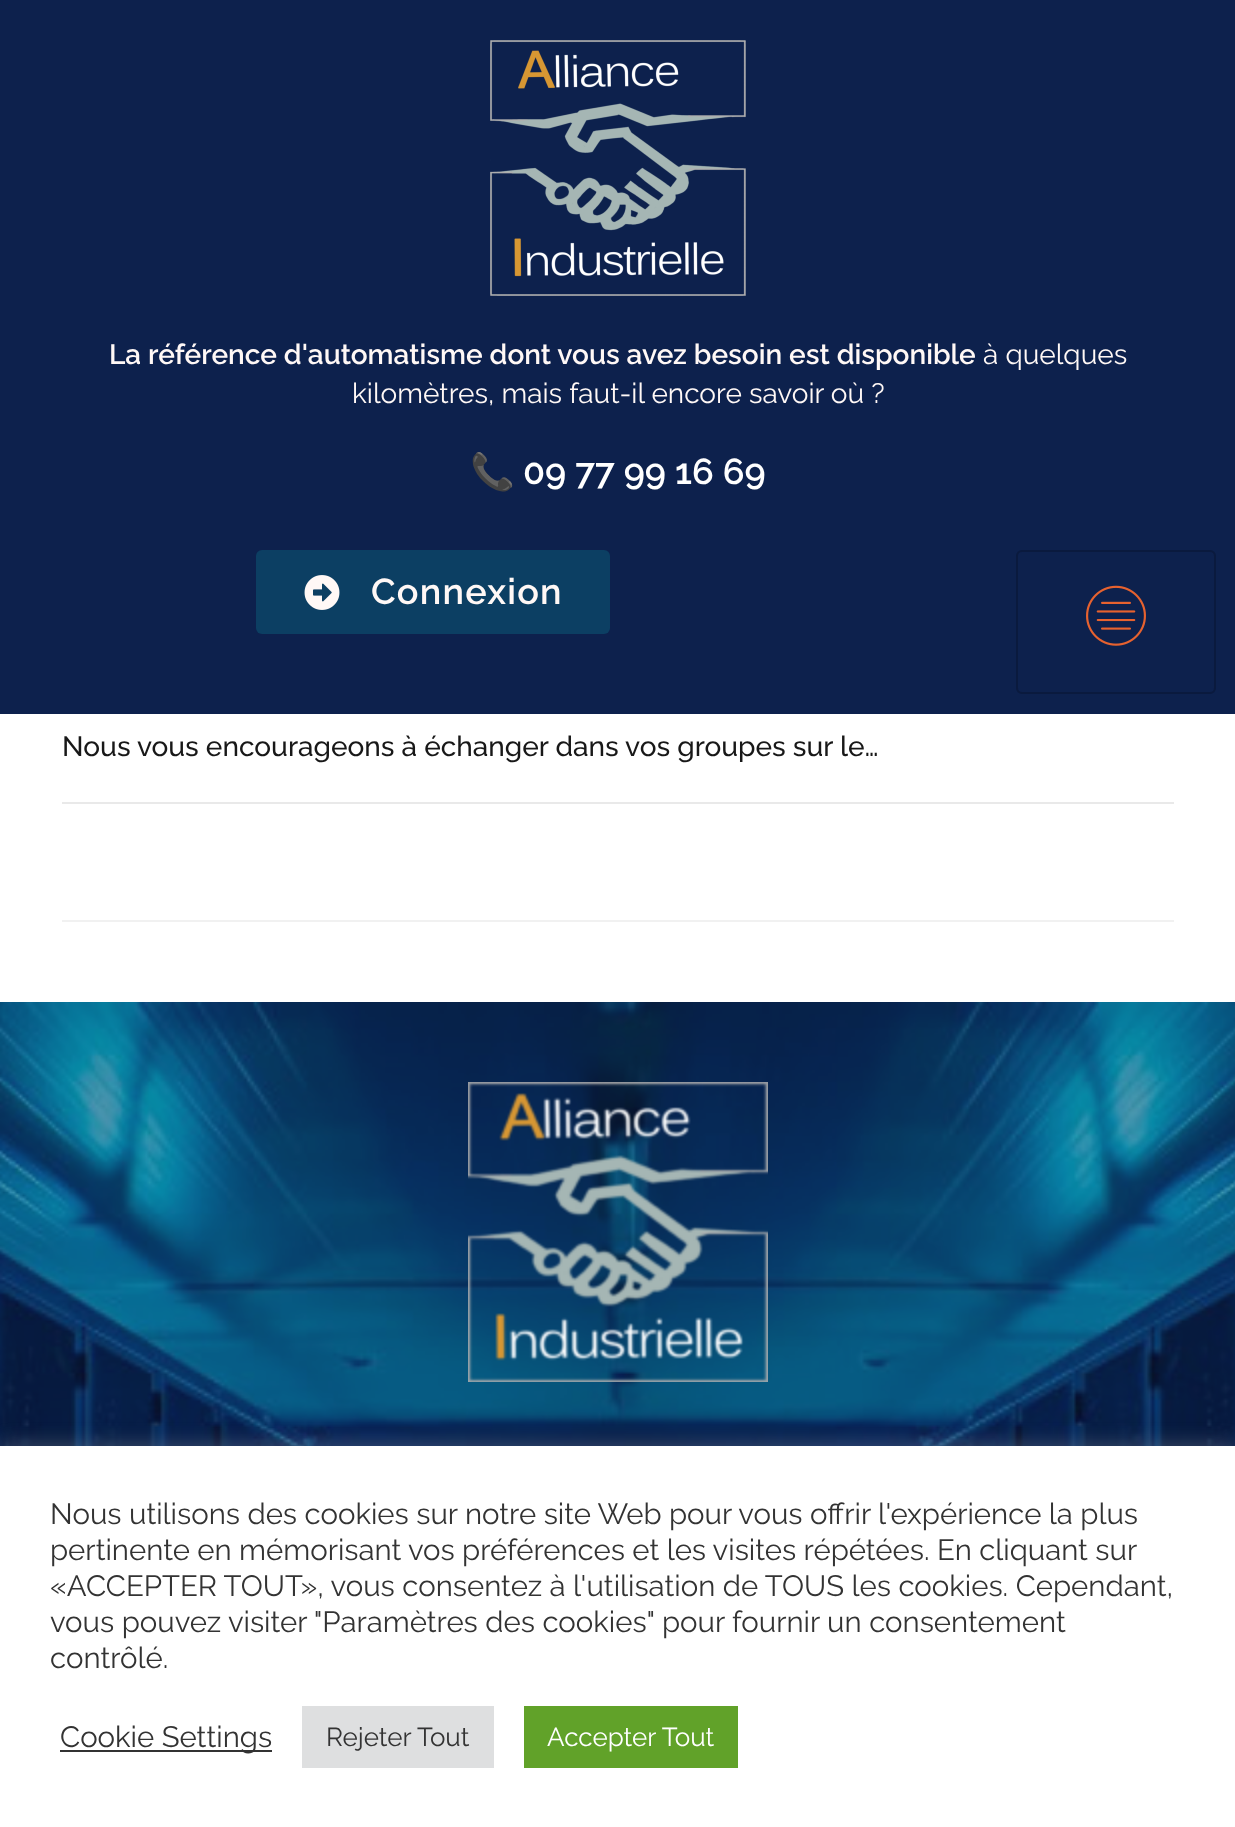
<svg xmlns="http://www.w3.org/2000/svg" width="1235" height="1827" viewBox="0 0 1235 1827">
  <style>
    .t1 { font: 600 28px Raleway; fill: #fff8f6; }
    .t2 { font: 28px Raleway; fill: #fff8f6; }
    .t3 { font: bold 36px Noto Color Emoji; fill: #fff; }
    .t4 { font: 600 36px Raleway; fill: #fff; }
    .t5 { font: 600 36px Raleway; letter-spacing: 1.25px; fill: #fff8f6; }
    .t6 { font: 500 28px Raleway; fill: #181818; }
    .t7 { font: 29.35px Raleway; fill: #333; }
    .t8 { font: 26px Raleway; fill: #333; }
    .t9 { font: 26px Raleway; fill: #fff; }
  </style>
  <rect width="100%" height="100%" fill="#fff"/>
  <rect x="0" y="0" width="1235" height="714" fill="#0d214d"/>
  <image x="490" y="40" width="256" height="256" href="images/1.png"/>
  <text x="109" y="364" class="t1">La référence d'automatisme dont vous avez besoin est disponible</text>
  <text x="983" y="364" class="t2">à quelques</text>
  <text x="352" y="403" class="t2">kilomètres, mais faut-il encore savoir où ?</text>
  <text x="470" y="484" class="t3">📞</text>
  <text x="523" y="484" class="t4">09 77 99 16 69</text>
  <rect x="256" y="550" width="354" height="84" rx="6" fill="#0c3f63"/>
  <image x="304" y="575" width="36" height="35" href="images/2.png"/>
  <text x="371" y="604" class="t5">Connexion</text>
  <rect x="1017" y="551" width="198" height="142" rx="5" fill="none" stroke="#0a1a3e" stroke-width="2"/>
  <image x="1086" y="585" width="60" height="61" href="images/3.png"/>
  <rect x="62" y="920" width="1112" height="2" fill="#f1f1f1"/>
  <text x="62" y="756" class="t6">Nous vous encourageons à échanger dans vos groupes sur le…</text>
  <rect x="62" y="802" width="1112" height="2" fill="#e9e9e9"/>
  <image x="0" y="1002" width="1235" height="444" href="images/4.png"/>
  <image x="468" y="1082" width="300" height="300" href="images/5.png"/>
  <rect x="0" y="1444" width="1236" height="382" fill="#acabab4d" filter="blur(10px)"/>
  <rect x="0" y="1446" width="1235" height="381" fill="#fff"/>
  <text x="50" y="1524" class="t7">Nous utilisons des cookies sur notre site Web pour vous offrir l'expérience la plus</text>
  <text x="50" y="1560" word-spacing="-0.1" class="t7">pertinente en mémorisant vos préférences et les visites répétées. En cliquant sur</text>
  <text x="50" y="1596" class="t7">«ACCEPTER TOUT», vous consentez à l'utilisation de TOUS les cookies. Cependant,</text>
  <text x="50" y="1632" class="t7">vous pouvez visiter "Paramètres des cookies" pour fournir un consentement</text>
  <text x="50" y="1668" class="t7">contrôlé.</text>
  <rect x="60" y="1750" width="212" height="2" fill="#333"/>
  <text x="60" y="1747" class="t7">Cookie Settings</text>
  <rect x="302" y="1706" width="192" height="62" fill="#dedfe0"/>
  <text x="326" y="1746" class="t8">Rejeter Tout</text>
  <rect x="524" y="1706" width="214" height="62" fill="#61a229"/>
  <text x="547" y="1746" class="t9">Accepter Tout</text>
</svg>
